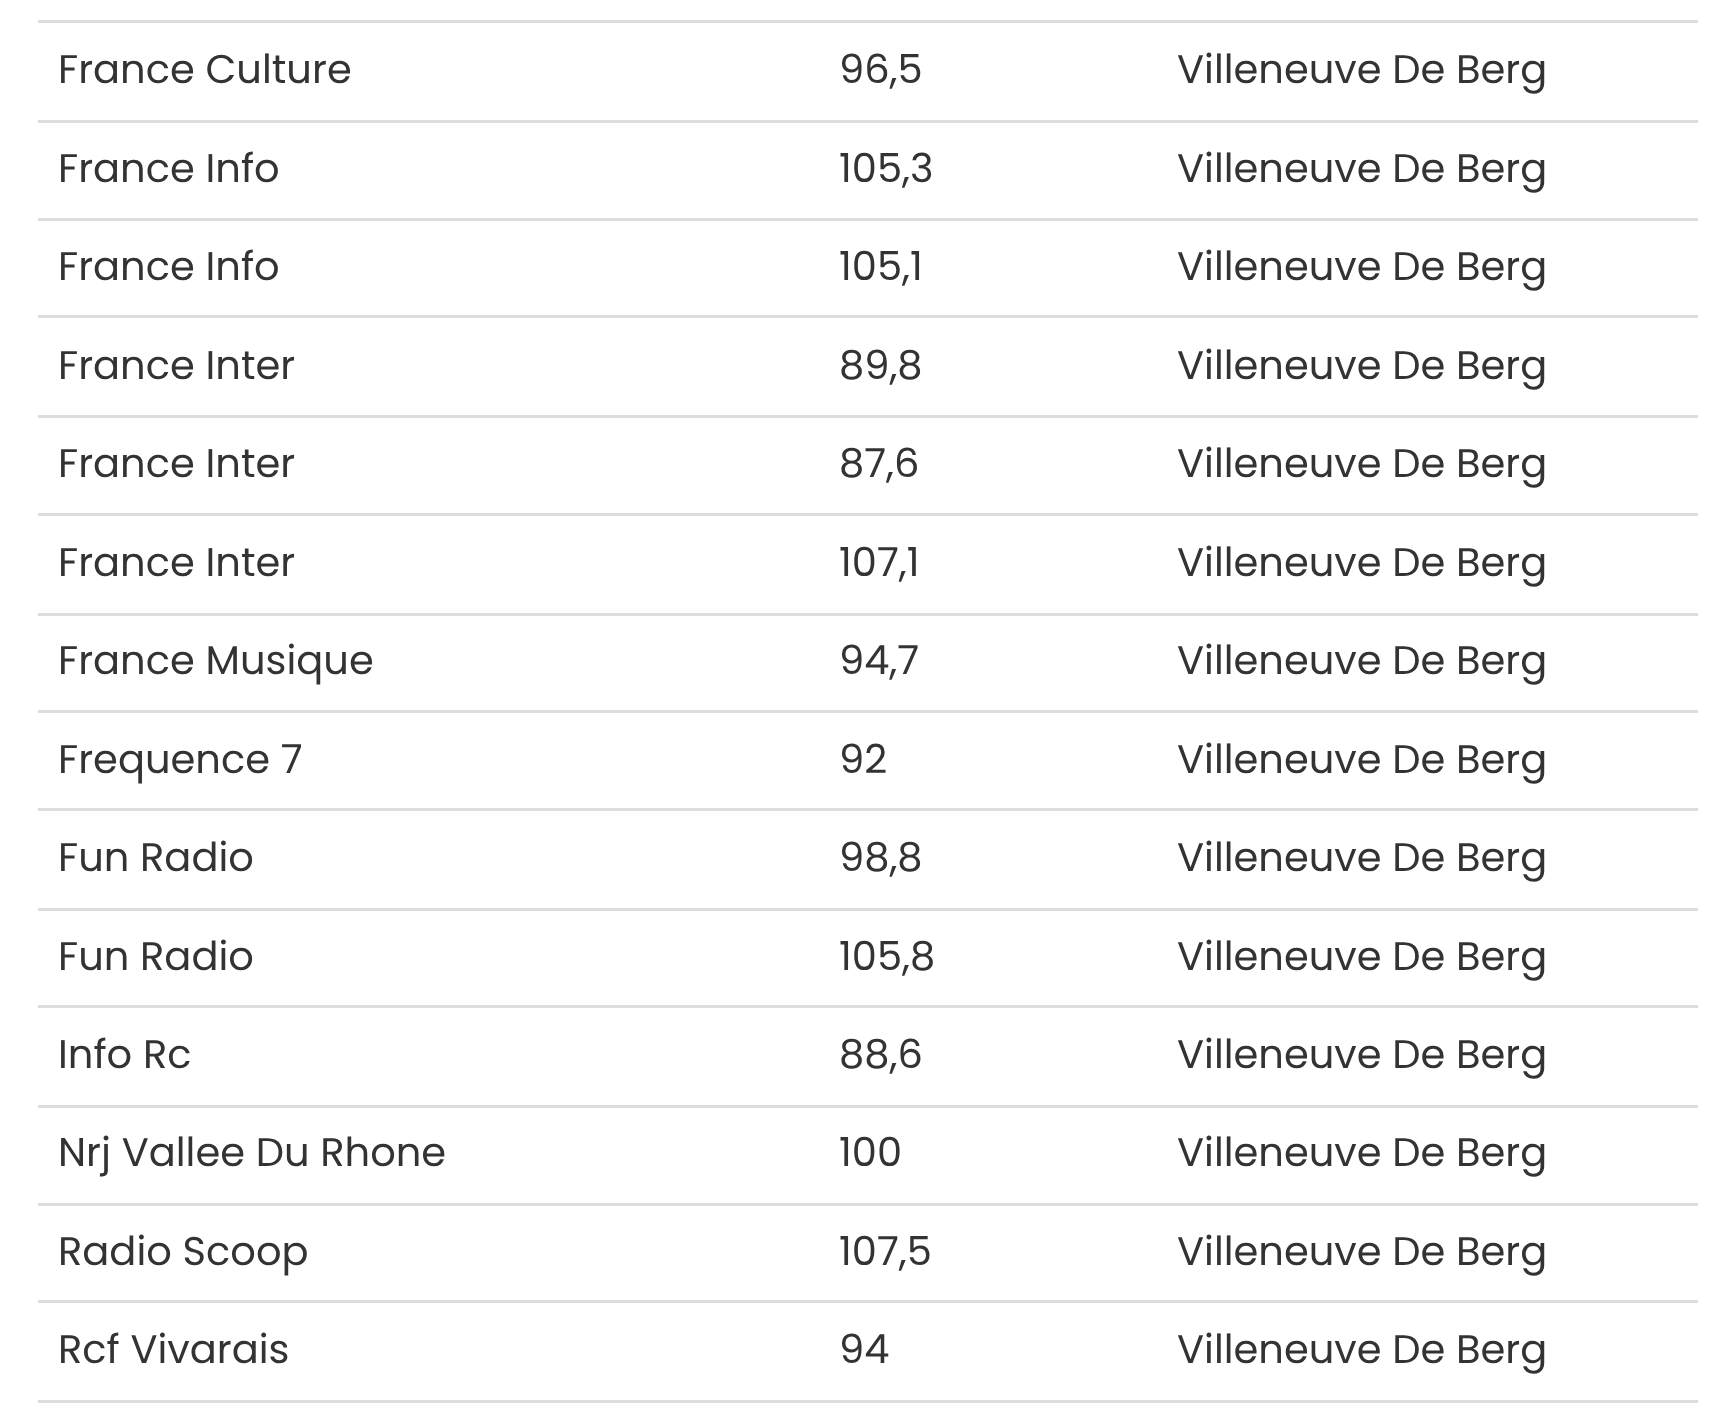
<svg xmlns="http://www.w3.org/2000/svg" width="1731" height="1414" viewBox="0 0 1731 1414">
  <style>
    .t1 { font: 40px Poppins; fill: #333; }
  </style>
  <rect width="100%" height="100%" fill="#fff"/>
  <text x="58" y="83" class="t1">France Culture</text>
  <text x="839" y="83" class="t1">96,5</text>
  <rect x="38" y="20" width="1660" height="3" fill="#ddd"/>
  <text x="1177" y="83" class="t1">Villeneuve De Berg</text>
  <text x="58" y="182" class="t1">France Info</text>
  <text x="839" y="182" class="t1">105,3</text>
  <rect x="38" y="120" width="1660" height="3" fill="#ddd"/>
  <text x="1177" y="182" class="t1">Villeneuve De Berg</text>
  <text x="58" y="280" class="t1">France Info</text>
  <text x="839" y="280" class="t1">105,1</text>
  <rect x="38" y="218" width="1660" height="3" fill="#ddd"/>
  <text x="1177" y="280" class="t1">Villeneuve De Berg</text>
  <text x="58" y="379" class="t1">France Inter</text>
  <text x="839" y="379" class="t1">89,8</text>
  <rect x="38" y="315" width="1660" height="3" fill="#ddd"/>
  <text x="1177" y="379" class="t1">Villeneuve De Berg</text>
  <text x="58" y="477" class="t1">France Inter</text>
  <text x="839" y="477" class="t1">87,6</text>
  <rect x="38" y="415" width="1660" height="3" fill="#ddd"/>
  <text x="1177" y="477" class="t1">Villeneuve De Berg</text>
  <text x="58" y="576" class="t1">France Inter</text>
  <text x="839" y="576" class="t1">107,1</text>
  <rect x="38" y="513" width="1660" height="3" fill="#ddd"/>
  <text x="1177" y="576" class="t1">Villeneuve De Berg</text>
  <text x="58" y="674" class="t1">France Musique</text>
  <text x="839" y="674" class="t1">94,7</text>
  <rect x="38" y="613" width="1660" height="3" fill="#ddd"/>
  <text x="1177" y="674" class="t1">Villeneuve De Berg</text>
  <text x="58" y="773" class="t1">Frequence 7</text>
  <text x="839" y="773" class="t1">92</text>
  <rect x="38" y="710" width="1660" height="3" fill="#ddd"/>
  <text x="1177" y="773" class="t1">Villeneuve De Berg</text>
  <text x="58" y="871" class="t1">Fun Radio</text>
  <text x="839" y="871" class="t1">98,8</text>
  <rect x="38" y="808" width="1660" height="3" fill="#ddd"/>
  <text x="1177" y="871" class="t1">Villeneuve De Berg</text>
  <text x="58" y="970" class="t1">Fun Radio</text>
  <text x="839" y="970" class="t1">105,8</text>
  <rect x="38" y="908" width="1660" height="3" fill="#ddd"/>
  <text x="1177" y="970" class="t1">Villeneuve De Berg</text>
  <text x="58" y="1068" class="t1">Info Rc</text>
  <text x="839" y="1068" class="t1">88,6</text>
  <rect x="38" y="1005" width="1660" height="3" fill="#ddd"/>
  <text x="1177" y="1068" class="t1">Villeneuve De Berg</text>
  <text x="58" y="1166" class="t1">Nrj Vallee Du Rhone</text>
  <text x="839" y="1166" class="t1">100</text>
  <rect x="38" y="1105" width="1660" height="3" fill="#ddd"/>
  <text x="1177" y="1166" class="t1">Villeneuve De Berg</text>
  <text x="58" y="1265" class="t1">Radio Scoop</text>
  <text x="839" y="1265" class="t1">107,5</text>
  <rect x="38" y="1203" width="1660" height="3" fill="#ddd"/>
  <text x="1177" y="1265" class="t1">Villeneuve De Berg</text>
  <text x="58" y="1363" class="t1">Rcf Vivarais</text>
  <text x="839" y="1363" class="t1">94</text>
  <rect x="38" y="1300" width="1660" height="3" fill="#ddd"/>
  <text x="1177" y="1363" class="t1">Villeneuve De Berg</text>
  <rect x="38" y="1400" width="1660" height="3" fill="#ddd"/>
</svg>
